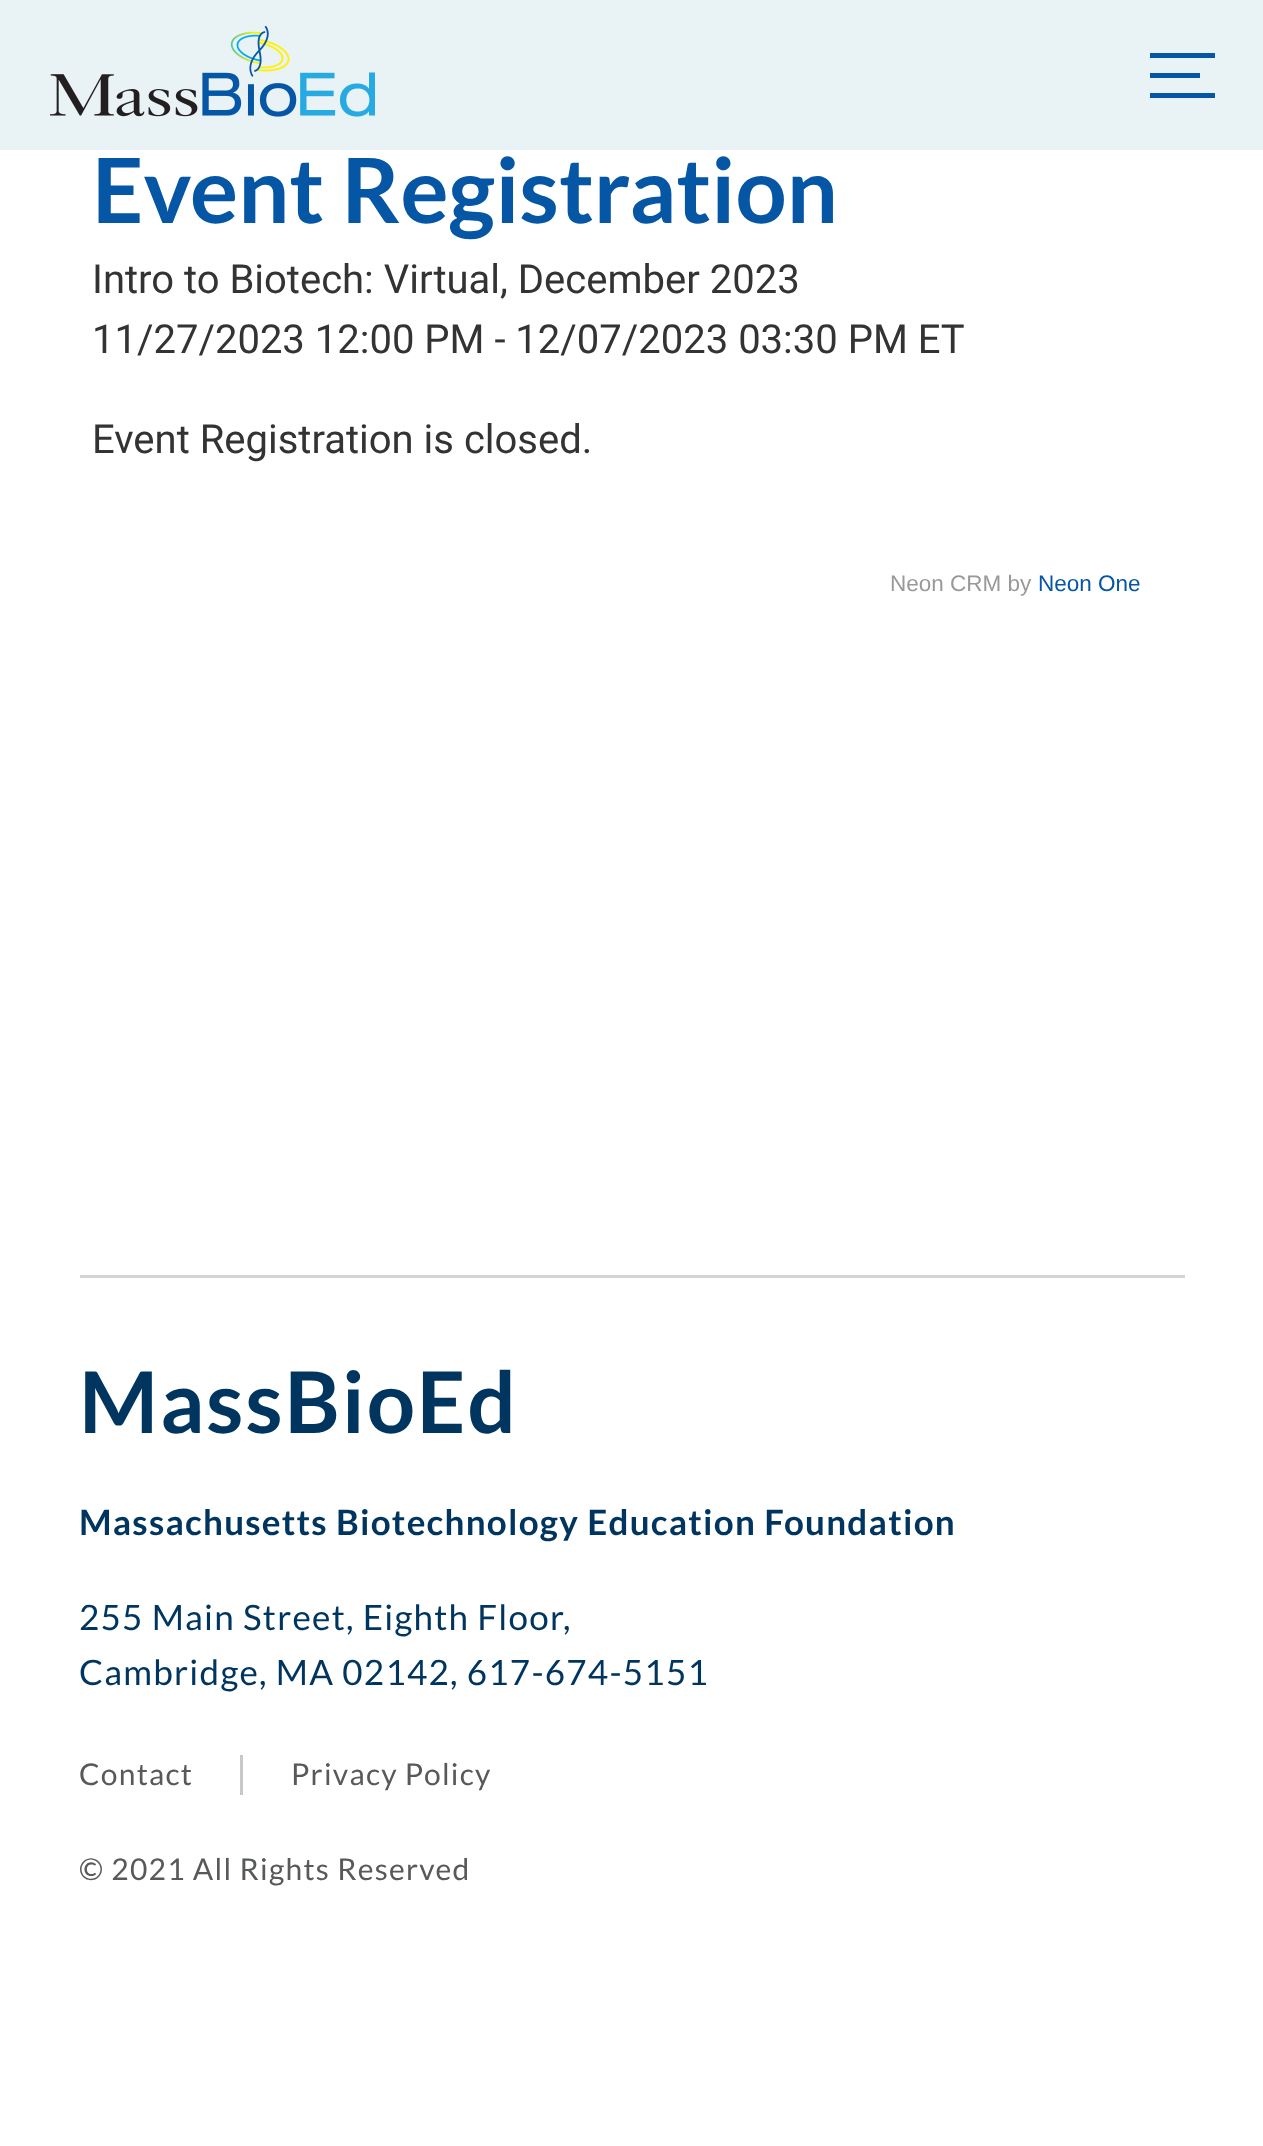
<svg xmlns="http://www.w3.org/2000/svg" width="1263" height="2146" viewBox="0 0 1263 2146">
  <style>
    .t1 { font: bold 90px Lato; fill: #0556a5; }
    .t2 { font: 40px Roboto; fill: #333; }
    .t3 { font: 22.5px Liberation Sans; fill: #999; }
    .t4 { font: 22.5px Liberation Sans; fill: #0556a5; }
    .t5 { font: bold 85px Lato; letter-spacing: 1.9px; fill: #00355f; }
    .t6 { font: bold 35px Lato; letter-spacing: 1.25px; fill: #00355f; }
    .t7 { font: 35px Lato; letter-spacing: 1.25px; fill: #00355f; }
    .t8 { font: 30px Lato; letter-spacing: 1.25px; fill: #585959; }
  </style>
  <rect width="100%" height="100%" fill="#fff"/>
  <rect x="0" y="0" width="1263" height="150" fill="#e9f2f5"/>
  <image x="50" y="25" width="325" height="92" href="images/1.png"/>
  <rect x="1150" y="73" width="50" height="5" fill="#0556a5"/>
  <rect x="1150" y="53" width="65" height="5" fill="#0556a5"/>
  <rect x="1150" y="93" width="65" height="5" fill="#0556a5"/>
  <text x="92" y="223" class="t1">Event Registration</text>
  <text x="92" y="293" class="t2">Intro to Biotech: Virtual, December 2023</text>
  <text x="92" y="353" class="t2">11/27/2023 12:00 PM - 12/07/2023 03:30 PM ET</text>
  <text x="92" y="453" class="t2">Event Registration is closed.</text>
  <text x="890" y="591" class="t3">Neon CRM by</text>
  <text x="1038" y="591" class="t4">Neon One</text>
  <rect x="80" y="1275" width="1105" height="3" fill="#d4d4d6"/>
  <text x="79" y="1433" class="t5">MassBioEd</text>
  <text x="79" y="1535" class="t6">Massachusetts Biotechnology Education Foundation</text>
  <text x="79" y="1630" class="t7">255 Main Street, Eighth Floor,</text>
  <text x="79" y="1685" class="t7">Cambridge, MA 02142, 617-674-5151</text>
  <text x="79" y="1785" class="t8">Contact</text>
  <rect x="240" y="1755" width="3" height="40" fill="#c8c8ca"/>
  <text x="291" y="1785" class="t8">Privacy Policy</text>
  <text x="79" y="1880" class="t8">© 2021 All Rights Reserved</text>
</svg>
